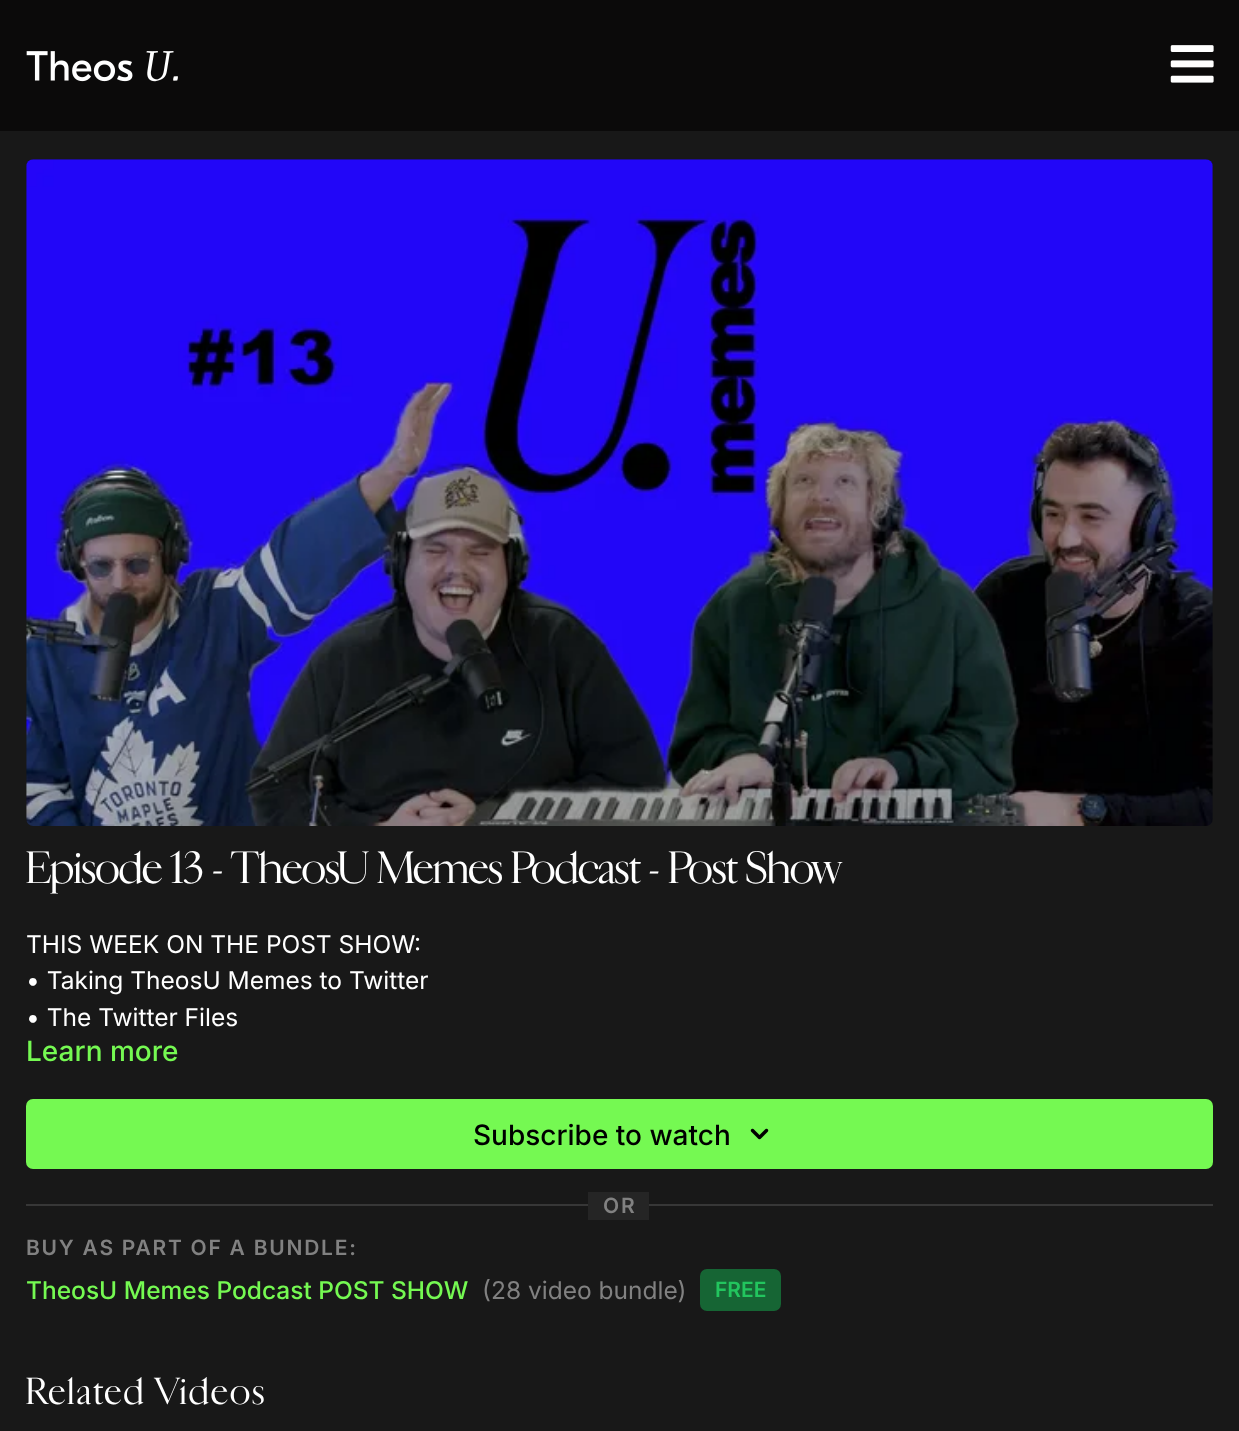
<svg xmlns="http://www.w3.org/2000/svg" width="1239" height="1431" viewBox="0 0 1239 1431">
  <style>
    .t1 { font: 42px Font; fill: #fff; }
    .t2 { font: 24.5px Inter; fill: #fff; }
    .t3 { font: 500 28px Inter; fill: #75f952; }
    .t4 { font: 500 28px Inter; fill: #000; }
    .t5 { font: 600 21px Inter; letter-spacing: 1.75px; fill: #818181; }
    .t6 { font: 500 24.5px Inter; fill: #75f952; }
    .t7 { font: 24.5px Inter; fill: #818181; }
    .t8 { font: 600 21px Inter; fill: #22c55e; }
    .t9 { font: 35px Font; letter-spacing: 2.75px; fill: #fff; }
  </style>
  <rect width="100%" height="100%" fill="#181818"/>
  <rect x="0" y="0" width="1239" height="131" fill="#0b0a0a"/>
  <image x="26" y="51" width="152" height="31" href="images/1.png"/>
  <image x="1170" y="45" width="44" height="38" href="images/2.png"/>
  <image x="26" y="159" width="1187" height="667" href="images/3.png"/>
  <text x="26" y="883" class="t1">Episode 13 - TheosU Memes Podcast - Post Show</text>
  <text x="26" y="953" class="t2">THIS WEEK ON THE POST SHOW:</text>
  <text x="26" y="989" class="t2">• Taking TheosU Memes to Twitter</text>
  <text x="26" y="1026" class="t2">• The Twitter Files</text>
  <text x="26" y="1061" class="t3">Learn more</text>
  <rect x="26" y="1099" width="1187" height="70" rx="7" fill="#75f952"/>
  <text x="473" y="1145" class="t4">Subscribe to watch</text>
  <image x="750" y="1128" width="19" height="12" href="images/4.png"/>
  <rect x="26" y="1204" width="1187" height="2" fill="#373737"/>
  <rect x="588" y="1192" width="61" height="28" fill="#252525"/>
  <text x="603" y="1213" class="t5">OR</text>
  <text x="26" y="1255" class="t5">BUY AS PART OF A BUNDLE:</text>
  <text x="26" y="1299" class="t6">TheosU Memes Podcast POST SHOW</text>
  <text x="482" y="1299" class="t7">(28 video bundle)</text>
  <rect x="700" y="1269" width="81" height="42" rx="7" fill="#166534"/>
  <text x="715" y="1297" class="t8">FREE</text>
  <text x="26" y="1404" class="t9">Related Videos</text>
</svg>
